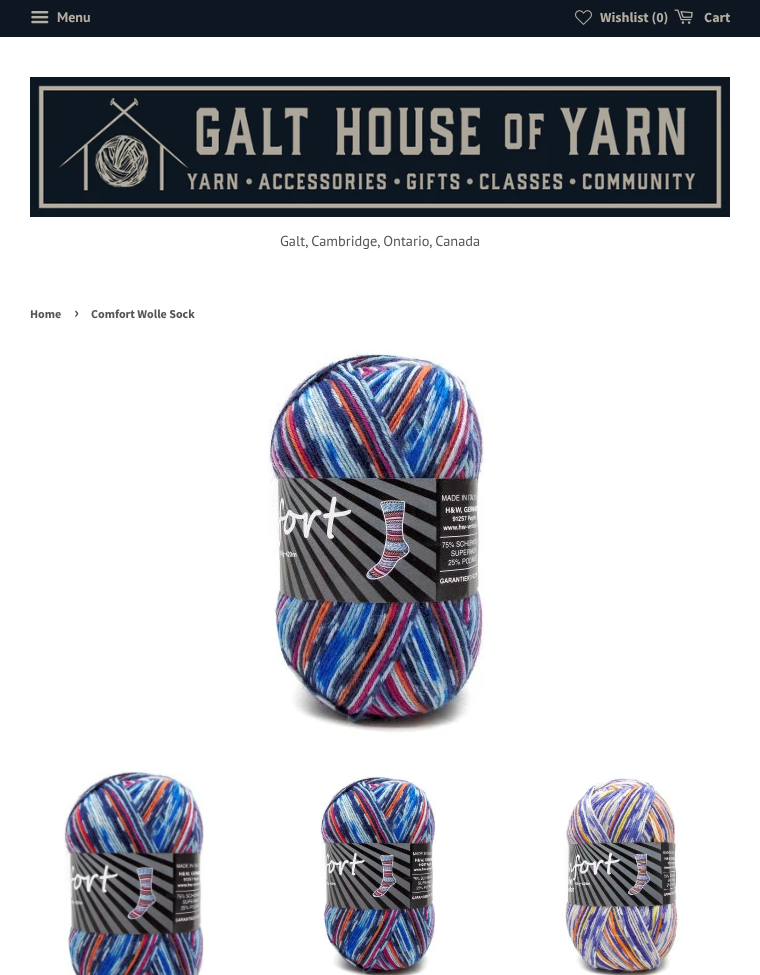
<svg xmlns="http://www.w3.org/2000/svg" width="760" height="975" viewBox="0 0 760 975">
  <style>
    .t1 { font: bold 14px PT Sans; fill: #b4aea2; }
    .t2 { font: bold 14px Source Sans Pro; fill: #b4aea2; }
    .t3 { font: 14.4px PT Sans; fill: #555; }
    .t4 { font: bold 12px Source Sans Pro; fill: #555; }
    .t5 { font: bold 17px Source Sans Pro; fill: #555; }
  </style>
  <rect width="100%" height="100%" fill="#fff"/>
  <rect x="0" y="0" width="760" height="37" fill="#0e1721"/>
  <image x="31" y="11" width="18" height="13" href="images/1.png"/>
  <text x="57" y="22" class="t1">Menu</text>
  <image x="575" y="10" width="17" height="15" href="images/2.png"/>
  <text x="600" y="22" class="t2">Wishlist (0)</text>
  <image x="674" y="9" width="19" height="15" href="images/3.png"/>
  <text x="704" y="22" class="t2">Cart</text>
  <image x="30" y="77" width="700" height="140" href="images/4.png"/>
  <text x="280" y="246" class="t3">Galt, Cambridge, Ontario, Canada</text>
  <text x="30" y="318" class="t4">Home</text>
  <text x="74" y="318" class="t5">›</text>
  <text x="91" y="318" class="t4">Comfort Wolle Sock</text>
  <image x="268" y="351" width="216" height="384" href="images/5.png"/>
  <image x="63" y="770" width="141" height="205" href="images/6.png"/>
  <image x="320" y="776" width="116" height="199" href="images/7.png"/>
  <image x="564" y="777" width="115" height="198" href="images/8.png"/>
</svg>
